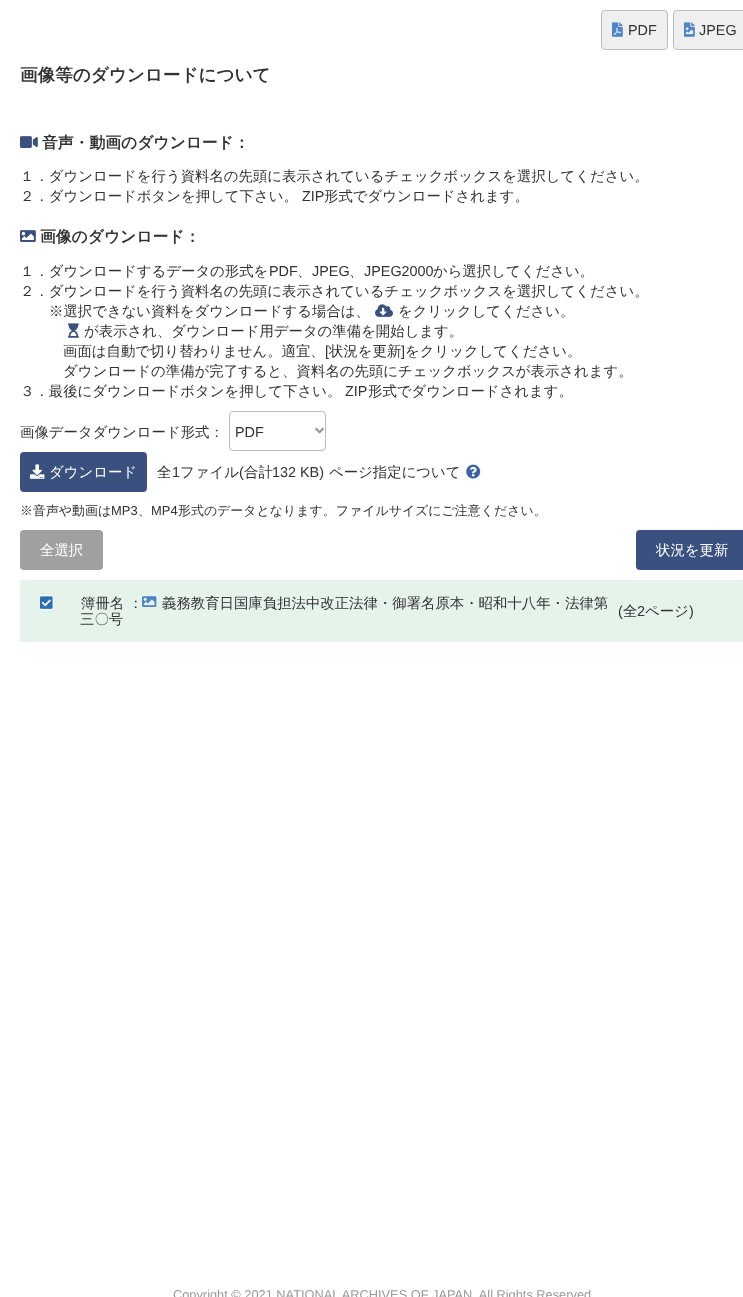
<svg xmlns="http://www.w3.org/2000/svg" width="743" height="1297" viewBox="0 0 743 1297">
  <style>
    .t1 { font: 14.4px Liberation Sans; fill: #333; }
    .t2 { font: bold 17.6px WenQuanYi Zen Hei; fill: #333; }
    .t3 { font: bold 15.8px WenQuanYi Zen Hei; fill: #333; }
    .t4 { font: 500 14.4px WenQuanYi Zen Hei; fill: #333; }
    .t5 { font: 500 14.4px WenQuanYi Zen Hei; fill: #fff; }
    .t6 { font: 500 12.95px WenQuanYi Zen Hei; fill: #333; }
    .t7 { font: 12.95px Liberation Sans; fill: #333; }
    .t8 { font: 12.8px Liberation Sans; fill: #999; }
  </style>
  <rect width="100%" height="100%" fill="#fff"/>
  <rect x="601.5" y="10.5" width="66" height="39" rx="3.5" fill="#efefef" stroke="#bbb"/>
  <image x="612" y="22" width="11" height="15" href="images/1.png"/>
  <text x="628" y="35" class="t1">PDF</text>
  <rect x="673.5" y="10.5" width="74" height="39" rx="3.5" fill="#efefef" stroke="#bbb"/>
  <image x="684" y="22" width="11" height="15" href="images/2.png"/>
  <text x="699" y="35" class="t1">JPEG</text>
  <text x="20" y="81" class="t2">画像等のダウンロードについて</text>
  <image x="20" y="136" width="18" height="12" href="images/3.png"/>
  <text x="42" y="148" class="t3">音声・動画のダウンロード：</text>
  <text x="20" y="181" class="t4">１．ダウンロードを行う資料名の先頭に表示されているチェックボックスを選択してください。</text>
  <text x="20" y="201" class="t4">２．ダウンロードボタンを押して下さい。</text>
  <text x="302" y="201" class="t1">ZIP</text>
  <text x="324" y="201" class="t4">形式でダウンロードされます。</text>
  <image x="20" y="230" width="16" height="12" href="images/4.png"/>
  <text x="40" y="242" class="t3">画像のダウンロード：</text>
  <text x="20" y="276" class="t4">１．ダウンロードするデータの形式を</text>
  <text x="269" y="276" class="t1">PDF</text>
  <text x="297" y="276" class="t4">、</text>
  <text x="312" y="276" class="t1">JPEG</text>
  <text x="349" y="276" class="t4">、</text>
  <text x="364" y="276" class="t1">JPEG2000</text>
  <text x="433" y="276" class="t4">から選択してください。</text>
  <text x="20" y="296" class="t4">２．ダウンロードを行う資料名の先頭に表示されているチェックボックスを選択してください。</text>
  <text x="49" y="316" class="t4">※選択できない資料をダウンロードする場合は、</text>
  <image x="375" y="304" width="18" height="13" href="images/5.png"/>
  <text x="398" y="316" class="t4">をクリックしてください。</text>
  <image x="68" y="323" width="11" height="15" href="images/6.png"/>
  <text x="84" y="336" class="t4">が表示され、ダウンロード用データの準備を開始します。</text>
  <text x="63" y="356" class="t4">画面は自動で切り替わりません。適宜、</text>
  <text x="325" y="356" class="t1">[</text>
  <text x="329" y="356" class="t4">状況を更新</text>
  <text x="401" y="356" class="t1">]</text>
  <text x="405" y="356" class="t4">をクリックしてください。</text>
  <text x="63" y="376" class="t4">ダウンロードの準備が完了すると、資料名の先頭にチェックボックスが表示されます。</text>
  <text x="20" y="396" class="t4">３．最後にダウンロードボタンを押して下さい。</text>
  <text x="345" y="396" class="t1">ZIP</text>
  <text x="368" y="396" class="t4">形式でダウンロードされます。</text>
  <text x="20" y="437" class="t4">画像データダウンロード形式：</text>
  <rect x="229.5" y="411.5" width="96" height="39" rx="3.5" fill="none" stroke="#bbb"/>
  <text x="235" y="437" class="t1">PDF</text>
  <image x="315" y="427" width="9" height="7" href="images/7.png"/>
  <rect x="20" y="452" width="127" height="40" rx="4" fill="#3a517f"/>
  <image x="30" y="464" width="15" height="15" href="images/8.png"/>
  <text x="49" y="477" class="t5">ダウンロード</text>
  <text x="157" y="477" class="t4">全</text>
  <text x="172" y="477" class="t1">1</text>
  <text x="180" y="477" class="t4">ファイル</text>
  <text x="239" y="477" class="t1">(</text>
  <text x="244" y="477" class="t4">合計</text>
  <text x="272" y="477" class="t1">132 KB)</text>
  <text x="329" y="477" class="t4">ページ指定について</text>
  <image x="466" y="464" width="15" height="15" href="images/9.png"/>
  <text x="20" y="515" class="t6">※音声や動画は</text>
  <text x="111" y="515" class="t7">MP3</text>
  <text x="151" y="515" class="t7">MP4</text>
  <text x="178" y="515" class="t6">形式のデータとなります。ファイルサイズにご注意ください。</text>
  <text x="138" y="515" class="t6">、</text>
  <rect x="20" y="530" width="83" height="40" rx="4" fill="#a0a0a0"/>
  <text x="40" y="555" class="t5">全選択</text>
  <rect x="636" y="530" width="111" height="40" rx="4" fill="#3a517f"/>
  <text x="656" y="555" class="t5">状況を更新</text>
  <rect x="20" y="580" width="723" height="62" fill="#e6f3eb"/>
  <rect x="40" y="595" width="13" height="15" fill="#fff"/>
  <text x="162" y="608" class="t4">義務教育日国庫負担法中改正法律・御署名原本・昭和十八年・法律第</text>
  <image x="40" y="596" width="13" height="13" href="images/10.png"/>
  <text x="81" y="608" class="t4">簿冊名 ：</text>
  <image x="142" y="596" width="15" height="11" href="images/11.png"/>
  <text x="80" y="624" class="t4">三〇号</text>
  <text x="618" y="616" class="t1">(</text>
  <text x="623" y="616" class="t4">全</text>
  <text x="637" y="616" class="t1">2</text>
  <text x="645" y="616" class="t4">ページ</text>
  <text x="689" y="616" class="t1">)</text>
  <text x="173" y="1299" class="t8">Copyright © 2021 NATIONAL ARCHIVES OF JAPAN. All Rights Reserved</text>
</svg>
